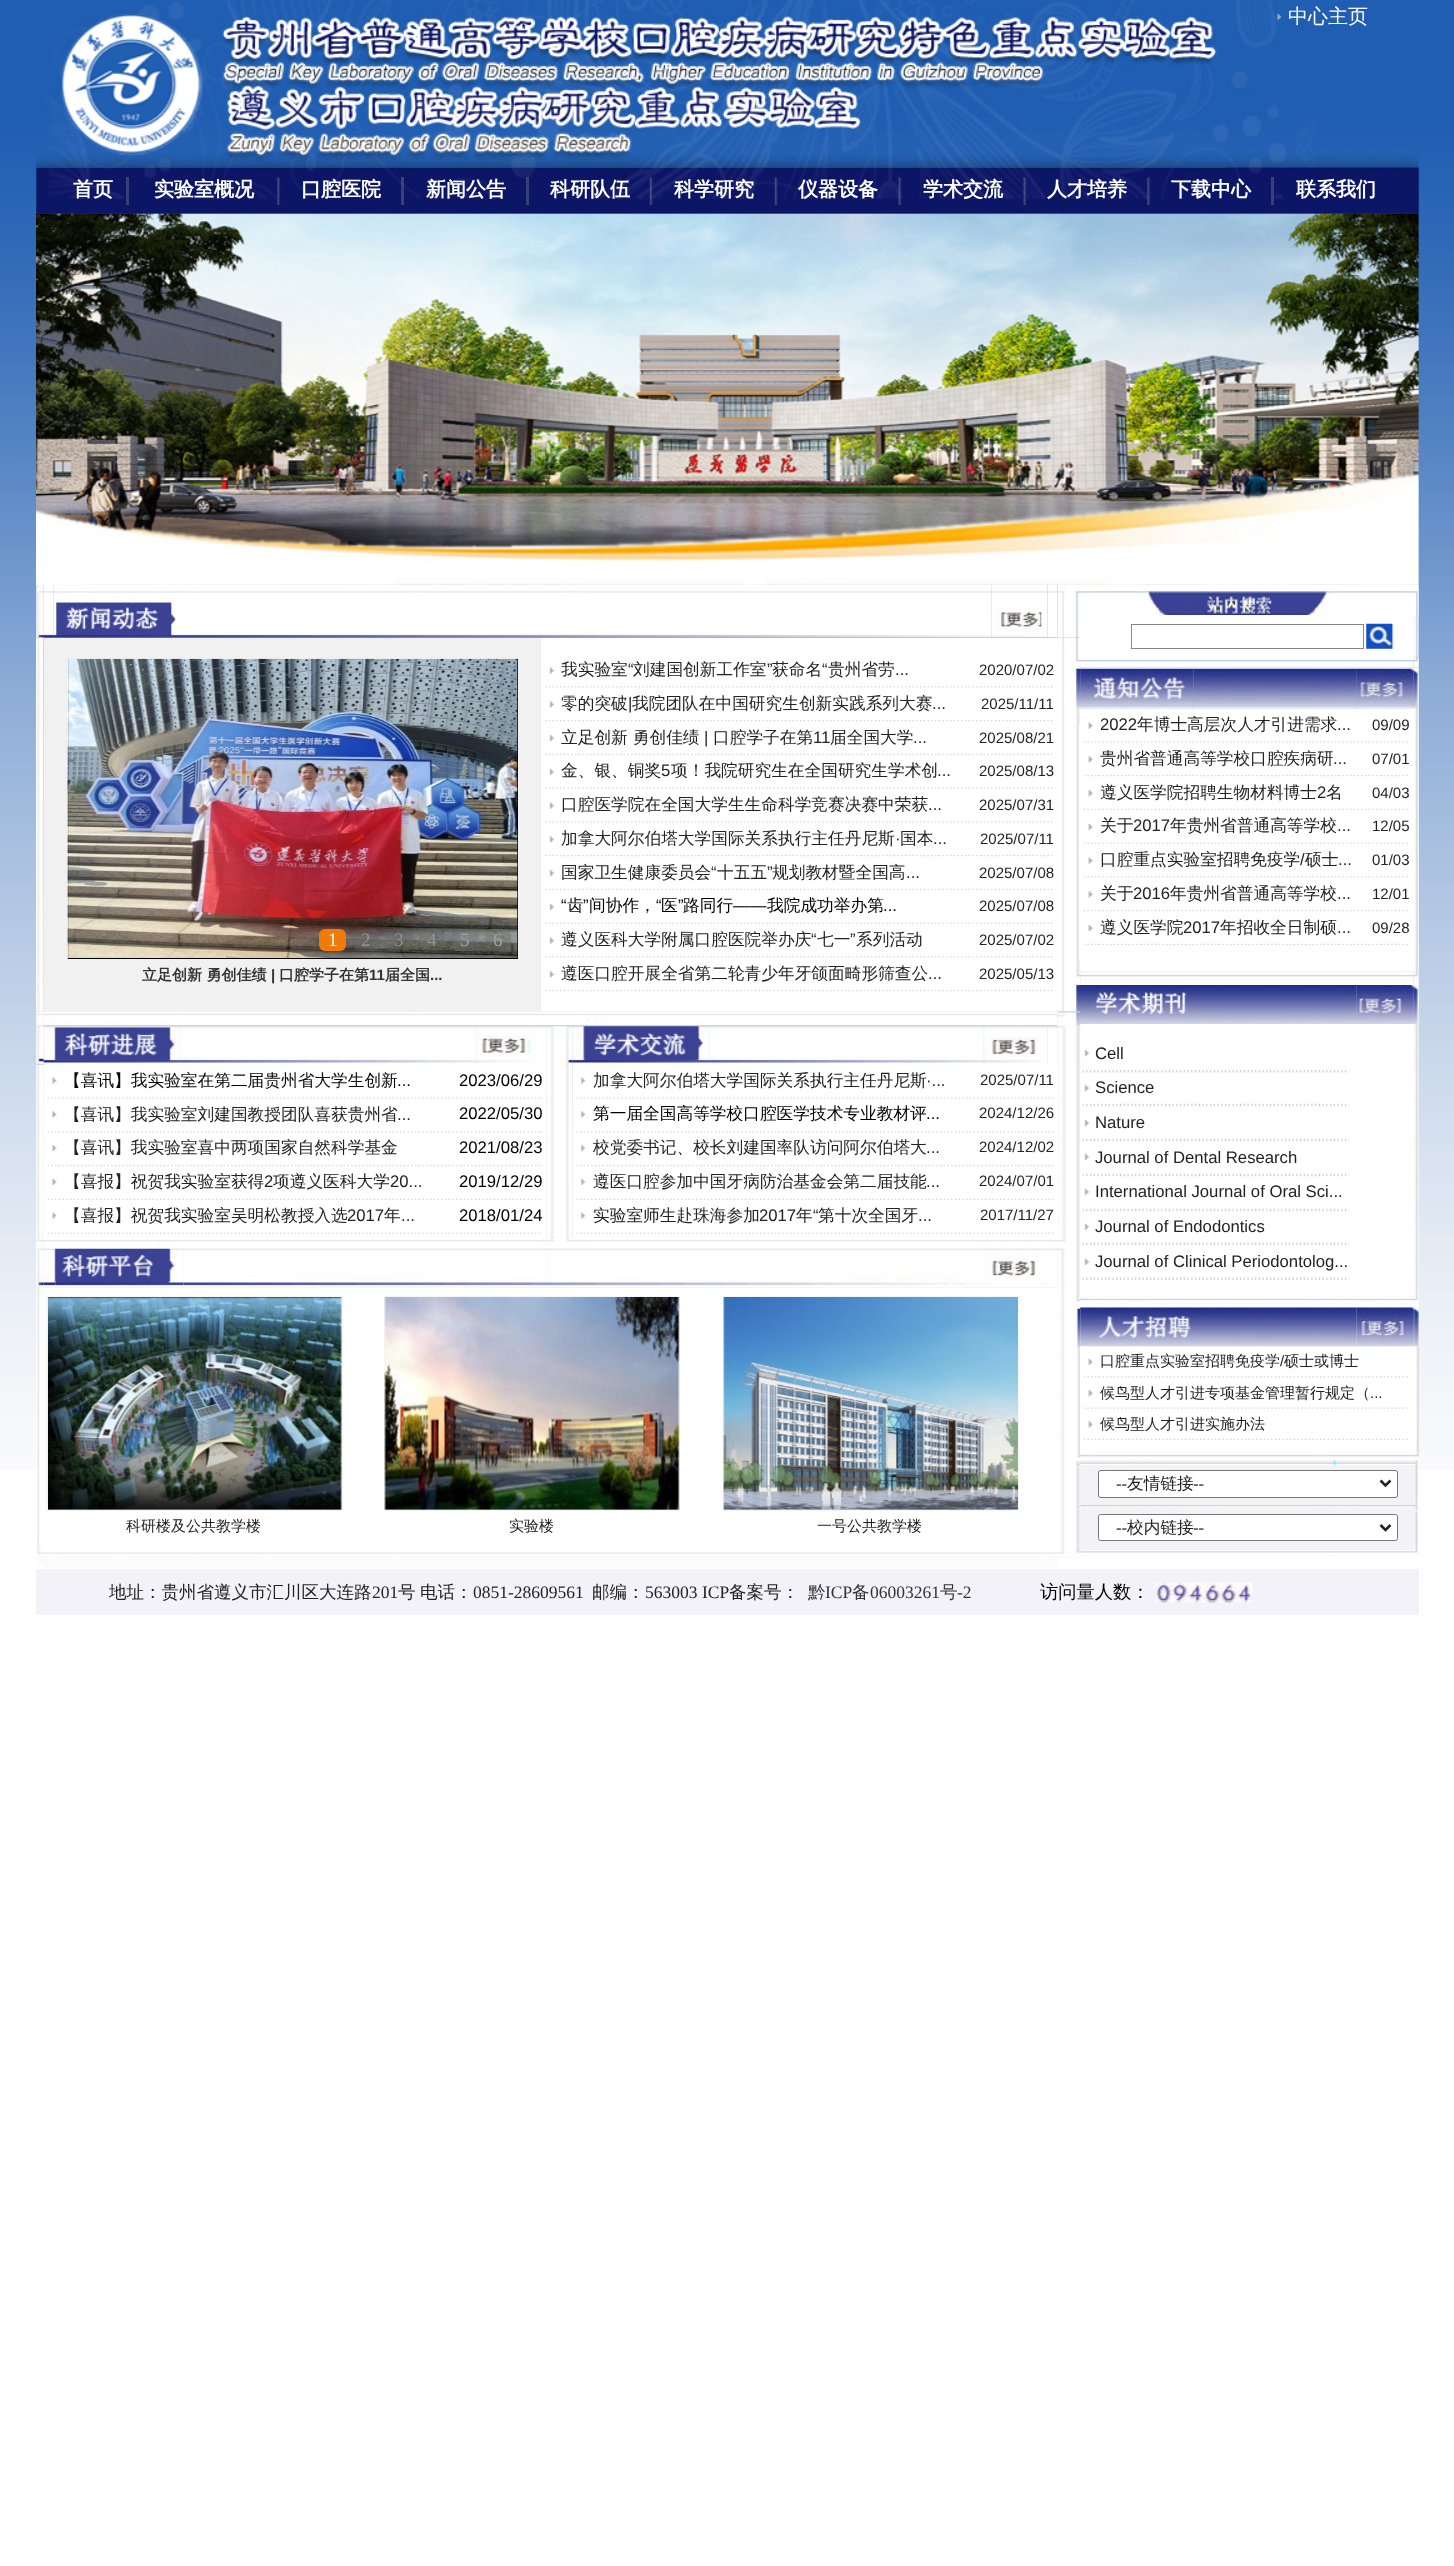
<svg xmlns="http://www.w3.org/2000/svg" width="1454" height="2566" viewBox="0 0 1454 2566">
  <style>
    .t1 { font: 500 20px WenQuanYi Zen Hei; fill: #fff; }
    .t2 { font: bold 20px WenQuanYi Zen Hei; fill: #fff; }
    .t3 { font: 19px Liberation Serif; fill: #fff; }
    .t4 { font: 19px Liberation Serif; fill: #959391; }
    .t5 { font: 19px Liberation Serif; fill: #9ea09f; }
    .t6 { font: bold 15px WenQuanYi Zen Hei; fill: #333; }
    .t7 { font: bold 15px Liberation Sans; fill: #333; }
    .t8 { font: 500 16.7px WenQuanYi Zen Hei; fill: #222; }
    .t9 { font: 16.7px Liberation Sans; fill: #222; }
    .t10 { font: 15px Liberation Sans; fill: #222; }
    .t11 { font: 16.7px Liberation Sans; fill: #000; }
    .t12 { font: 500 16.7px WenQuanYi Zen Hei; fill: #000; }
    .t13 { font: 500 15px WenQuanYi Zen Hei; fill: #222; }
    .t14 { font: 16.7px Liberation Serif; fill: #222; }
    .t15 { font: 500 16.7px WenQuanYi Zen Hei; fill: #080707; }
    .t16 { font: 16.7px Liberation Sans; fill: #080707; }
    .t17 { font: 500 17.5px WenQuanYi Zen Hei; fill: #222; }
    .t18 { font: 17.5px Liberation Serif; fill: #222; }
    .t19 { font: 500 17.5px WenQuanYi Zen Hei; fill: #333; }
    .t20 { font: 17.5px Liberation Serif; fill: #333; }
    .t21 { font: 500 18.25px WenQuanYi Zen Hei; fill: #000; }
  </style>
  <rect width="100%" height="100%" fill="#fff"/>
  <image x="0" y="0" width="1454" height="1470" href="images/1.png"/>
  <image x="1225" y="0" width="194" height="168" href="images/4.png"/>
  <image x="36" y="167" width="1383" height="47" href="images/6.png"/>
  <image x="36" y="2" width="184" height="166" href="images/2.png"/>
  <image x="219" y="0" width="1006" height="168" href="images/3.png"/>
  <image x="1277" y="13" width="5" height="7" href="images/5.png"/>
  <text x="1288" y="23" class="t1">中心主页</text>
  <text x="73" y="196" class="t2">首页</text>
  <rect x="126" y="177" width="3" height="28" fill="#8b8d8d5c"/>
  <text x="154" y="196" class="t2">实验室概况</text>
  <image x="277" y="177" width="4" height="28" href="images/7.png"/>
  <text x="301" y="196" class="t2">口腔医院</text>
  <rect x="401" y="177" width="3" height="28" fill="#8b8d8d5c"/>
  <text x="426" y="196" class="t2">新闻公告</text>
  <rect x="526" y="177" width="3" height="28" fill="#8b8d8d5c"/>
  <text x="550" y="196" class="t2">科研队伍</text>
  <image x="649" y="177" width="4" height="28" href="images/8.png"/>
  <text x="674" y="196" class="t2">科学研究</text>
  <image x="774" y="177" width="4" height="28" href="images/9.png"/>
  <text x="798" y="196" class="t2">仪器设备</text>
  <image x="898" y="177" width="4" height="28" href="images/10.png"/>
  <text x="923" y="196" class="t2">学术交流</text>
  <image x="1023" y="177" width="4" height="28" href="images/11.png"/>
  <text x="1047" y="196" class="t2">人才培养</text>
  <image x="1147" y="177" width="4" height="28" href="images/12.png"/>
  <text x="1171" y="196" class="t2">下载中心</text>
  <rect x="1271" y="177" width="3" height="28" fill="#8b8d8d5c"/>
  <text x="1296" y="196" class="t2">联系我们</text>
  <image x="36" y="213" width="1383" height="372" href="images/13.png"/>
  <rect x="44" y="638" width="497" height="373" fill="#f1f1f1"/>
  <image x="36" y="585" width="8" height="53" href="images/25.png"/>
  <image x="43" y="585" width="11" height="53" href="images/26.png"/>
  <image x="36" y="637" width="9" height="375" href="images/14.png"/>
  <rect x="68" y="659" width="450" height="300" fill="#000"/>
  <image x="67" y="658" width="451" height="301" href="images/15.png"/>
  <rect x="319" y="929" width="27" height="22" rx="6" fill="#f17b0a"/>
  <text x="328" y="946" class="t3">1</text>
  <rect x="353" y="929" width="26" height="22" rx="6" fill="#6666664d"/>
  <text x="361" y="946" class="t4">2</text>
  <rect x="385" y="929" width="28" height="22" rx="6" fill="#6666664d"/>
  <text x="394" y="946" class="t4">3</text>
  <rect x="419" y="929" width="26" height="22" rx="6" fill="#6666664d"/>
  <text x="427" y="946" class="t4">4</text>
  <rect x="451" y="929" width="28" height="22" rx="6" fill="#6666664d"/>
  <text x="460" y="946" class="t5">5</text>
  <rect x="485" y="929" width="26" height="22" rx="6" fill="#6666664d"/>
  <text x="493" y="946" class="t5">6</text>
  <text x="142" y="980" class="t6">立足创新 勇创佳绩</text>
  <text x="271" y="980" class="t7">|</text>
  <text x="279" y="980" class="t6">口腔学子在第</text>
  <text x="369" y="980" class="t7">11</text>
  <text x="385" y="980" class="t6">届全国</text>
  <text x="430" y="980" class="t7">...</text>
  <rect x="541" y="638" width="517" height="373" fill="#fff"/>
  <image x="549" y="667" width="6" height="7" href="images/16.png"/>
  <text x="561" y="675" class="t8">我实验室</text>
  <text x="628" y="675" class="t9">“</text>
  <text x="633" y="675" class="t8">刘建国创新工作室</text>
  <text x="767" y="675" class="t9">”</text>
  <text x="772" y="675" class="t8">获命名</text>
  <text x="822" y="675" class="t9">“</text>
  <text x="828" y="675" class="t8">贵州省劳</text>
  <text x="895" y="675" class="t9">...</text>
  <text x="979" y="675" class="t10">2020/07/02</text>
  <image x="545" y="686" width="508" height="2" href="images/17.png"/>
  <image x="549" y="701" width="6" height="7" href="images/18.png"/>
  <text x="561" y="709" class="t8">零的突破</text>
  <text x="628" y="709" class="t9">|</text>
  <text x="632" y="709" class="t8">我院团队在中国研究生创新实践系列大赛</text>
  <text x="932" y="709" class="t9">...</text>
  <text x="981" y="709" class="t10">2025/11/11</text>
  <image x="545" y="720" width="508" height="2" href="images/19.png"/>
  <image x="549" y="735" width="6" height="7" href="images/20.png"/>
  <text x="561" y="743" class="t8">立足创新 勇创佳绩</text>
  <text x="704" y="743" class="t9">|</text>
  <text x="713" y="743" class="t8">口腔学子在第</text>
  <text x="813" y="743" class="t9">11</text>
  <text x="830" y="743" class="t8">届全国大学</text>
  <text x="913" y="743" class="t9">...</text>
  <text x="979" y="743" class="t10">2025/08/21</text>
  <image x="545" y="753" width="508" height="2" href="images/21.png"/>
  <image x="549" y="768" width="6" height="7" href="images/22.png"/>
  <text x="561" y="776" class="t8">金、银、铜奖</text>
  <text x="661" y="776" class="t9">5</text>
  <text x="671" y="776" class="t8">项！我院研究生在全国研究生学术创</text>
  <text x="937" y="776" class="t9">...</text>
  <text x="979" y="776" class="t10">2025/08/13</text>
  <image x="545" y="787" width="508" height="2" href="images/23.png"/>
  <image x="549" y="802" width="6" height="7" href="images/16.png"/>
  <text x="561" y="810" class="t8">口腔医学院在全国大学生生命科学竞赛决赛中荣获</text>
  <text x="928" y="810" class="t9">...</text>
  <text x="979" y="810" class="t10">2025/07/31</text>
  <image x="545" y="821" width="508" height="2" href="images/17.png"/>
  <image x="549" y="836" width="6" height="7" href="images/18.png"/>
  <text x="561" y="844" class="t8">加拿大阿尔伯塔大学国际关系执行主任丹尼斯</text>
  <text x="895" y="844" class="t9">·</text>
  <text x="900" y="844" class="t8">国本</text>
  <text x="933" y="844" class="t9">...</text>
  <text x="980" y="844" class="t10">2025/07/11</text>
  <image x="545" y="855" width="508" height="2" href="images/19.png"/>
  <image x="549" y="870" width="6" height="7" href="images/20.png"/>
  <text x="561" y="878" class="t8">国家卫生健康委员会</text>
  <text x="711" y="878" class="t9">“</text>
  <text x="717" y="878" class="t8">十五五</text>
  <text x="767" y="878" class="t9">”</text>
  <text x="772" y="878" class="t8">规划教材暨全国高</text>
  <text x="906" y="878" class="t9">...</text>
  <text x="979" y="878" class="t10">2025/07/08</text>
  <image x="545" y="888" width="508" height="2" href="images/21.png"/>
  <image x="549" y="903" width="6" height="7" href="images/22.png"/>
  <text x="561" y="911" class="t11">“</text>
  <text x="567" y="911" class="t12">齿</text>
  <text x="583" y="911" class="t11">”</text>
  <text x="589" y="911" class="t12">间协作，</text>
  <text x="656" y="911" class="t11">“</text>
  <text x="661" y="911" class="t12">医</text>
  <text x="678" y="911" class="t11">”</text>
  <text x="683" y="911" class="t12">路同行</text>
  <text x="733" y="911" class="t11">——</text>
  <text x="767" y="911" class="t12">我院成功举办第</text>
  <text x="883" y="911" class="t11">...</text>
  <text x="979" y="911" class="t10">2025/07/08</text>
  <image x="545" y="922" width="508" height="2" href="images/23.png"/>
  <image x="549" y="937" width="6" height="7" href="images/16.png"/>
  <text x="561" y="945" class="t8">遵义医科大学附属口腔医院举办庆</text>
  <text x="811" y="945" class="t9">“</text>
  <text x="817" y="945" class="t8">七一</text>
  <text x="850" y="945" class="t9">”</text>
  <text x="856" y="945" class="t8">系列活动</text>
  <text x="979" y="945" class="t10">2025/07/02</text>
  <image x="545" y="956" width="508" height="2" href="images/17.png"/>
  <image x="549" y="971" width="6" height="7" href="images/18.png"/>
  <text x="561" y="979" class="t8">遵医口腔开展全省第二轮青少年牙颌面畸形筛查公</text>
  <text x="928" y="979" class="t9">...</text>
  <text x="979" y="979" class="t10">2025/05/13</text>
  <image x="545" y="990" width="508" height="2" href="images/19.png"/>
  <image x="180" y="585" width="812" height="53" href="images/28.png"/>
  <image x="991" y="585" width="57" height="53" href="images/29.png"/>
  <image x="1047" y="585" width="11" height="53" href="images/30.png"/>
  <image x="1057" y="585" width="23" height="53" href="images/31.png"/>
  <image x="1057" y="637" width="23" height="375" href="images/24.png"/>
  <image x="53" y="585" width="127" height="53" href="images/27.png"/>
  <image x="1080" y="585" width="339" height="30" href="images/32.png"/>
  <rect x="1080" y="615" width="334" height="43" fill="#fff"/>
  <rect x="1131.5" y="624.5" width="232" height="24" fill="none" stroke="#878787"/>
  <image x="1366" y="623" width="28" height="26" href="images/33.png"/>
  <image x="1414" y="615" width="5" height="43" href="images/34.png"/>
  <image x="1080" y="658" width="334" height="10" href="images/35.png"/>
  <image x="1413" y="657" width="6" height="11" href="images/36.png"/>
  <image x="1080" y="667" width="115" height="42" href="images/37.png"/>
  <image x="1193" y="667" width="164" height="42" href="images/38.png"/>
  <image x="1356" y="667" width="59" height="42" href="images/39.png"/>
  <image x="1413" y="667" width="6" height="42" href="images/40.png"/>
  <rect x="1080" y="709" width="334" height="262" fill="#fff"/>
  <image x="1088" y="722" width="6" height="7" href="images/41.png"/>
  <text x="1100" y="730" class="t9">2022</text>
  <text x="1137" y="730" class="t8">年博士高层次人才引进需求</text>
  <text x="1337" y="730" class="t9">...</text>
  <text x="1372" y="730" class="t10">09/09</text>
  <image x="1084" y="741" width="324" height="2" href="images/42.png"/>
  <image x="1088" y="756" width="6" height="7" href="images/43.png"/>
  <text x="1100" y="764" class="t8">贵州省普通高等学校口腔疾病研</text>
  <text x="1333" y="764" class="t9">...</text>
  <text x="1372" y="764" class="t10">07/01</text>
  <image x="1083" y="775" width="327" height="2" href="images/44.png"/>
  <image x="1088" y="790" width="6" height="7" href="images/45.png"/>
  <text x="1100" y="798" class="t8">遵义医学院招聘生物材料博士</text>
  <text x="1317" y="798" class="t9">2</text>
  <text x="1326" y="798" class="t8">名</text>
  <text x="1372" y="798" class="t10">04/03</text>
  <image x="1083" y="808" width="327" height="2" href="images/46.png"/>
  <image x="1088" y="823" width="5" height="7" href="images/47.png"/>
  <text x="1100" y="831" class="t8">关于</text>
  <text x="1133" y="831" class="t9">2017</text>
  <text x="1170" y="831" class="t8">年贵州省普通高等学校</text>
  <text x="1337" y="831" class="t9">...</text>
  <text x="1372" y="831" class="t10">12/05</text>
  <image x="1084" y="842" width="324" height="2" href="images/48.png"/>
  <image x="1088" y="857" width="6" height="7" href="images/41.png"/>
  <text x="1100" y="865" class="t8">口腔重点实验室招聘免疫学</text>
  <text x="1300" y="865" class="t9">/</text>
  <text x="1305" y="865" class="t8">硕士</text>
  <text x="1338" y="865" class="t9">...</text>
  <text x="1372" y="865" class="t10">01/03</text>
  <image x="1084" y="876" width="324" height="2" href="images/42.png"/>
  <image x="1088" y="891" width="6" height="7" href="images/43.png"/>
  <text x="1100" y="899" class="t8">关于</text>
  <text x="1133" y="899" class="t9">2016</text>
  <text x="1170" y="899" class="t8">年贵州省普通高等学校</text>
  <text x="1337" y="899" class="t9">...</text>
  <text x="1372" y="899" class="t10">12/01</text>
  <image x="1083" y="910" width="327" height="2" href="images/49.png"/>
  <image x="1088" y="925" width="6" height="7" href="images/45.png"/>
  <text x="1100" y="933" class="t8">遵义医学院</text>
  <text x="1183" y="933" class="t9">2017</text>
  <text x="1220" y="933" class="t8">年招收全日制硕</text>
  <text x="1337" y="933" class="t9">...</text>
  <text x="1372" y="933" class="t10">09/28</text>
  <image x="1083" y="943" width="327" height="2" href="images/46.png"/>
  <image x="1413" y="708" width="6" height="264" href="images/50.png"/>
  <image x="1080" y="971" width="335" height="14" href="images/51.png"/>
  <image x="1413" y="971" width="6" height="14" href="images/52.png"/>
  <image x="1080" y="985" width="277" height="39" href="images/53.png"/>
  <image x="1356" y="985" width="58" height="39" href="images/54.png"/>
  <image x="1413" y="985" width="6" height="39" href="images/55.png"/>
  <rect x="1080" y="1024" width="334" height="272" fill="#fff"/>
  <image x="1084" y="1050" width="6" height="7" href="images/56.png"/>
  <text x="1095" y="1059" class="t9">Cell</text>
  <image x="1082" y="1070" width="267" height="3" href="images/57.png"/>
  <image x="1084" y="1085" width="6" height="7" href="images/56.png"/>
  <text x="1095" y="1093" class="t9">Science</text>
  <image x="1082" y="1103" width="267" height="4" href="images/58.png"/>
  <image x="1084" y="1120" width="6" height="7" href="images/56.png"/>
  <text x="1095" y="1128" class="t9">Nature</text>
  <image x="1082" y="1138" width="267" height="4" href="images/58.png"/>
  <image x="1084" y="1153" width="6" height="7" href="images/59.png"/>
  <text x="1095" y="1163" class="t9">Journal of Dental Research</text>
  <image x="1082" y="1173" width="267" height="4" href="images/58.png"/>
  <image x="1084" y="1188" width="6" height="7" href="images/59.png"/>
  <text x="1095" y="1197" class="t9">International Journal of Oral Sci...</text>
  <image x="1082" y="1208" width="267" height="4" href="images/58.png"/>
  <image x="1084" y="1223" width="6" height="7" href="images/59.png"/>
  <text x="1095" y="1232" class="t9">Journal of Endodontics</text>
  <image x="1082" y="1242" width="267" height="3" href="images/60.png"/>
  <image x="1084" y="1258" width="6" height="7" href="images/59.png"/>
  <text x="1095" y="1267" class="t9">Journal of Clinical Periodontolog...</text>
  <image x="1082" y="1277" width="267" height="3" href="images/61.png"/>
  <image x="1413" y="1023" width="6" height="274" href="images/62.png"/>
  <image x="1080" y="1296" width="339" height="12" href="images/63.png"/>
  <rect x="1080" y="1346" width="334" height="108" fill="#fff"/>
  <image x="1080" y="1307" width="277" height="40" href="images/64.png"/>
  <image x="1356" y="1307" width="58" height="40" href="images/65.png"/>
  <image x="1413" y="1307" width="6" height="40" href="images/66.png"/>
  <image x="1088" y="1358" width="5" height="7" href="images/47.png"/>
  <text x="1100" y="1366" class="t13">口腔重点实验室招聘免疫学</text>
  <text x="1280" y="1366" class="t10">/</text>
  <text x="1284" y="1366" class="t13">硕士或博士</text>
  <image x="1084" y="1376" width="324" height="2" href="images/42.png"/>
  <image x="1088" y="1390" width="6" height="7" href="images/45.png"/>
  <text x="1100" y="1398" class="t13">候鸟型人才引进专项基金管理暂行规定（</text>
  <text x="1370" y="1398" class="t10">...</text>
  <image x="1084" y="1407" width="324" height="2" href="images/48.png"/>
  <image x="1088" y="1421" width="6" height="7" href="images/43.png"/>
  <text x="1100" y="1429" class="t13">候鸟型人才引进实施办法</text>
  <image x="1083" y="1438" width="327" height="2" href="images/46.png"/>
  <image x="1414" y="1346" width="5" height="108" href="images/67.png"/>
  <image x="1080" y="1454" width="334" height="11" href="images/68.png"/>
  <image x="1413" y="1454" width="6" height="11" href="images/69.png"/>
  <rect x="1080" y="1465" width="334" height="39" fill="#f3f3f7"/>
  <rect x="1098.5" y="1470.5" width="299" height="27" rx="2" fill="#fff" stroke="#767676"/>
  <path d="M1380.5 1480.5L1385.5 1485.5L1390.5 1480.5" fill="none" stroke="#222" stroke-width="2.5"/>
  <text x="1116" y="1489" class="t14">--</text>
  <text x="1127" y="1489" class="t8">友情链接</text>
  <text x="1193" y="1489" class="t14">--</text>
  <image x="1414" y="1465" width="4" height="39" href="images/70.png"/>
  <image x="1080" y="1504" width="339" height="6" href="images/71.png"/>
  <rect x="1080" y="1510" width="334" height="38" fill="#f3f3f7"/>
  <rect x="1098.5" y="1514.5" width="299" height="26" rx="2" fill="#fff" stroke="#767676"/>
  <path d="M1380.5 1525L1385.5 1530L1390.5 1525" fill="none" stroke="#222" stroke-width="2.5"/>
  <text x="1116" y="1533" class="t14">--</text>
  <text x="1127" y="1533" class="t8">校内链接</text>
  <text x="1193" y="1533" class="t14">--</text>
  <image x="1414" y="1511" width="4" height="37" href="images/72.png"/>
  <image x="1080" y="1547" width="335" height="6" href="images/73.png"/>
  <image x="1414" y="1547" width="4" height="6" href="images/74.png"/>
  <image x="36" y="1011" width="8" height="53" href="images/75.png"/>
  <image x="43" y="1011" width="1015" height="14" href="images/76.png"/>
  <rect x="573" y="1065" width="485" height="173" fill="#fff"/>
  <image x="1057" y="1012" width="24" height="237" href="images/77.png"/>
  <image x="43" y="1026" width="138" height="39" href="images/78.png"/>
  <image x="180" y="1026" width="297" height="39" href="images/79.png"/>
  <image x="476" y="1026" width="71" height="39" href="images/80.png"/>
  <image x="546" y="1026" width="27" height="39" href="images/81.png"/>
  <image x="572" y="1026" width="139" height="39" href="images/82.png"/>
  <image x="710" y="1026" width="274" height="39" href="images/83.png"/>
  <image x="983" y="1026" width="65" height="39" href="images/84.png"/>
  <image x="1047" y="1026" width="11" height="39" href="images/85.png"/>
  <image x="36" y="1065" width="8" height="173" href="images/86.png"/>
  <rect x="44" y="1065" width="502" height="173" fill="#fff"/>
  <image x="52" y="1077" width="5" height="7" href="images/87.png"/>
  <text x="64" y="1086" class="t15">【喜讯】我实验室在第二届贵州省大学生创新</text>
  <text x="397" y="1086" class="t16">...</text>
  <text x="459" y="1086" class="t11">2023/06/29</text>
  <image x="47" y="1097" width="496" height="2" href="images/88.png"/>
  <image x="52" y="1111" width="5" height="7" href="images/89.png"/>
  <text x="64" y="1120" class="t8">【喜讯】我实验室刘建国教授团队喜获贵州省</text>
  <text x="397" y="1120" class="t9">...</text>
  <text x="459" y="1119" class="t11">2022/05/30</text>
  <image x="47" y="1131" width="496" height="2" href="images/90.png"/>
  <image x="52" y="1145" width="5" height="7" href="images/91.png"/>
  <text x="64" y="1153" class="t8">【喜讯】我实验室喜中两项国家自然科学基金</text>
  <text x="459" y="1153" class="t11">2021/08/23</text>
  <image x="47" y="1165" width="496" height="2" href="images/92.png"/>
  <image x="52" y="1178" width="5" height="7" href="images/93.png"/>
  <text x="64" y="1187" class="t8">【喜报】祝贺我实验室获得</text>
  <text x="264" y="1187" class="t9">2</text>
  <text x="273" y="1187" class="t8">项遵义医科大学</text>
  <text x="390" y="1187" class="t9">20...</text>
  <text x="459" y="1187" class="t11">2019/12/29</text>
  <image x="47" y="1198" width="496" height="2" href="images/94.png"/>
  <image x="52" y="1212" width="5" height="7" href="images/87.png"/>
  <text x="64" y="1221" class="t8">【喜报】祝贺我实验室吴明松教授入选</text>
  <text x="347" y="1221" class="t9">2017</text>
  <text x="384" y="1221" class="t8">年</text>
  <text x="401" y="1221" class="t9">...</text>
  <text x="459" y="1221" class="t11">2018/01/24</text>
  <image x="47" y="1232" width="496" height="2" href="images/88.png"/>
  <image x="546" y="1065" width="27" height="173" href="images/95.png"/>
  <image x="581" y="1077" width="5" height="7" href="images/96.png"/>
  <text x="593" y="1086" class="t8">加拿大阿尔伯塔大学国际关系执行主任丹尼斯</text>
  <text x="926" y="1086" class="t9">·...</text>
  <text x="980" y="1085" class="t10">2025/07/11</text>
  <image x="576" y="1097" width="478" height="2" href="images/97.png"/>
  <image x="581" y="1111" width="5" height="7" href="images/98.png"/>
  <text x="593" y="1119" class="t12">第一届全国高等学校口腔医学技术专业教材评</text>
  <text x="926" y="1119" class="t11">...</text>
  <text x="979" y="1118" class="t10">2024/12/26</text>
  <image x="576" y="1131" width="478" height="2" href="images/99.png"/>
  <image x="581" y="1145" width="5" height="7" href="images/100.png"/>
  <text x="593" y="1153" class="t8">校党委书记、校长刘建国率队访问阿尔伯塔大</text>
  <text x="926" y="1153" class="t9">...</text>
  <text x="979" y="1152" class="t10">2024/12/02</text>
  <image x="576" y="1165" width="478" height="2" href="images/101.png"/>
  <image x="581" y="1178" width="5" height="7" href="images/102.png"/>
  <text x="593" y="1187" class="t8">遵医口腔参加中国牙病防治基金会第二届技能</text>
  <text x="926" y="1187" class="t9">...</text>
  <text x="979" y="1186" class="t10">2024/07/01</text>
  <image x="576" y="1198" width="478" height="2" href="images/103.png"/>
  <image x="581" y="1212" width="5" height="7" href="images/96.png"/>
  <text x="593" y="1221" class="t8">实验室师生赴珠海参加</text>
  <text x="759" y="1221" class="t9">2017</text>
  <text x="796" y="1221" class="t8">年</text>
  <text x="813" y="1221" class="t9">“</text>
  <text x="818" y="1221" class="t8">第十次全国牙</text>
  <text x="918" y="1221" class="t9">...</text>
  <text x="980" y="1220" class="t10">2017/11/27</text>
  <image x="576" y="1232" width="478" height="2" href="images/97.png"/>
  <image x="36" y="1237" width="9" height="51" href="images/104.png"/>
  <image x="44" y="1237" width="1014" height="12" href="images/105.png"/>
  <image x="43" y="1248" width="12" height="40" href="images/106.png"/>
  <image x="54" y="1248" width="131" height="40" href="images/107.png"/>
  <image x="183" y="1248" width="804" height="40" href="images/108.png"/>
  <image x="986" y="1248" width="72" height="40" href="images/109.png"/>
  <image x="1057" y="1248" width="23" height="40" href="images/110.png"/>
  <image x="36" y="1287" width="8" height="263" href="images/111.png"/>
  <rect x="44" y="1288" width="1014" height="182" fill="#fff"/>
  <rect x="46" y="1296" width="297" height="215" fill="#f5f5f5"/>
  <image x="48" y="1297" width="294" height="213" href="images/112.png"/>
  <text x="126" y="1531" class="t13">科研楼及公共教学楼</text>
  <rect x="384" y="1296" width="296" height="215" fill="#f5f5f5"/>
  <image x="384" y="1297" width="296" height="213" href="images/113.png"/>
  <text x="509" y="1531" class="t13">实验楼</text>
  <rect x="723" y="1296" width="296" height="215" fill="#f5f5f5"/>
  <image x="723" y="1297" width="295" height="213" href="images/114.png"/>
  <text x="817" y="1531" class="t13">一号公共教学楼</text>
  <image x="1058" y="1287" width="22" height="263" href="images/115.png"/>
  <image x="37" y="1550" width="7" height="13" href="images/116.png"/>
  <image x="44" y="1551" width="1014" height="17" href="images/117.png"/>
  <image x="1057" y="1550" width="23" height="9" href="images/118.png"/>
  <rect x="36" y="1569" width="1383" height="46" fill="#f3f2f8"/>
  <text x="109" y="1598" class="t17">地址：贵州省遵义市汇川区大连路</text>
  <text x="372" y="1598" class="t18">201</text>
  <text x="398" y="1598" class="t17">号</text>
  <text x="420" y="1598" class="t17">电话：</text>
  <text x="473" y="1598" class="t18">0851-28609561</text>
  <text x="592" y="1598" class="t17">邮编：</text>
  <text x="645" y="1598" class="t18">563003 ICP</text>
  <text x="729" y="1598" class="t17">备案号：</text>
  <text x="808" y="1598" class="t19">黔</text>
  <text x="825" y="1598" class="t20">ICP</text>
  <text x="852" y="1598" class="t19">备</text>
  <text x="870" y="1598" class="t20">06003261</text>
  <text x="940" y="1598" class="t19">号</text>
  <text x="957" y="1598" class="t20">-2</text>
  <text x="1040" y="1598" class="t21">访问量人数：</text>
  <image x="1155" y="1582" width="98" height="21" href="images/119.png"/>
</svg>
